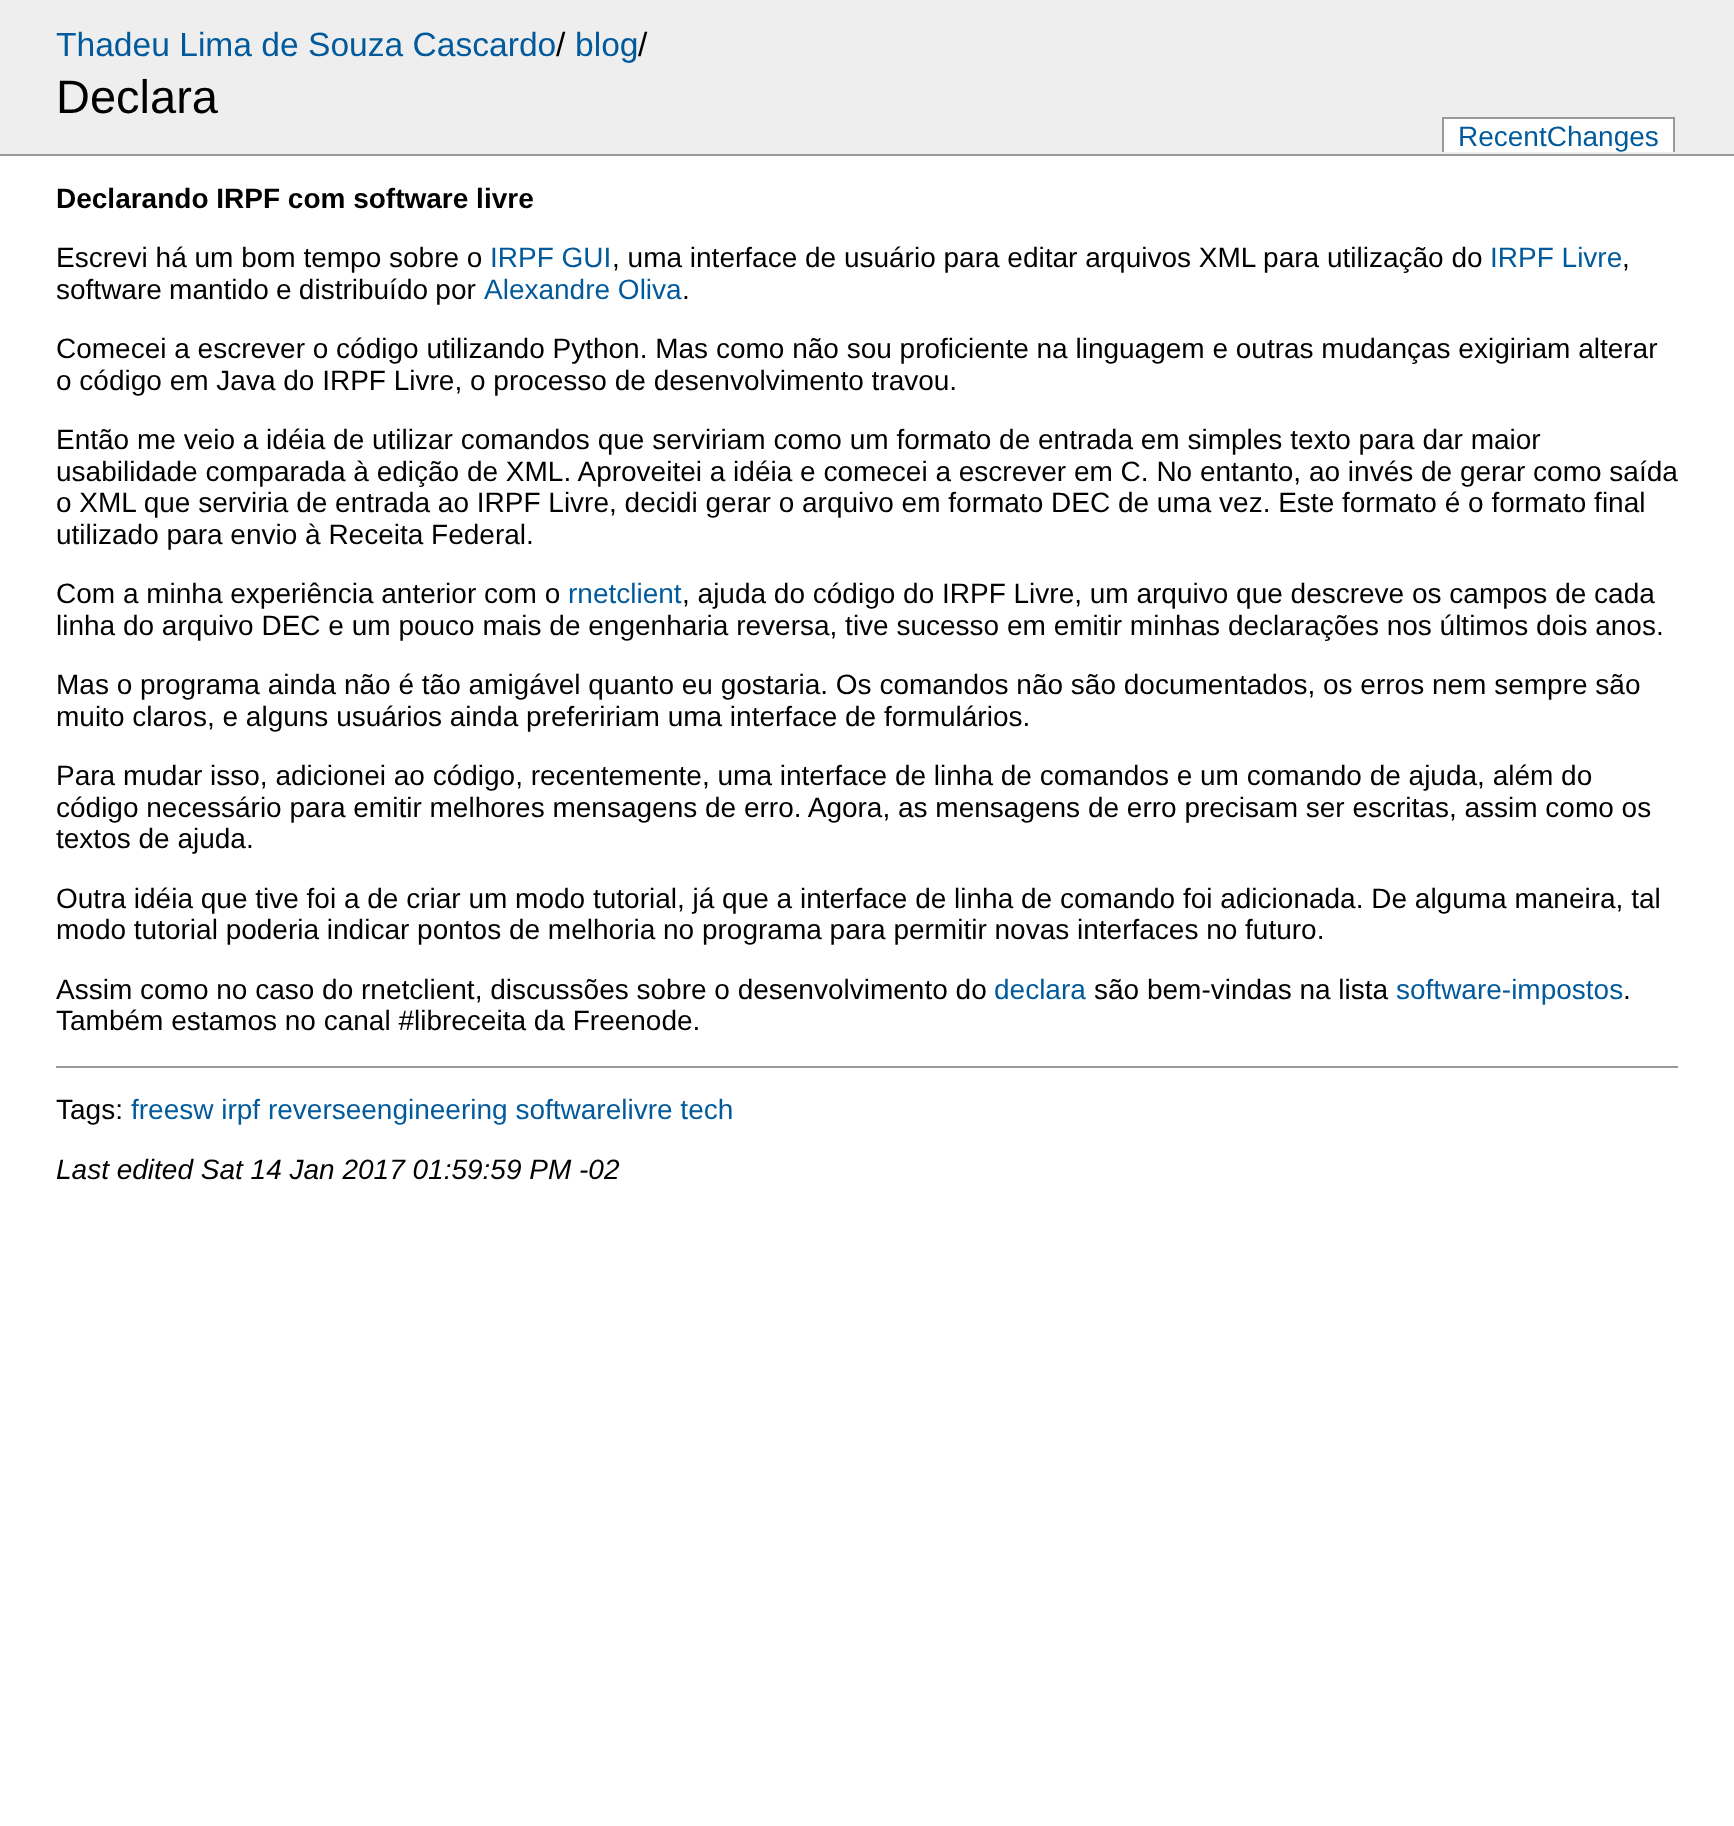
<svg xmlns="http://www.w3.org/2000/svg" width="1734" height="1826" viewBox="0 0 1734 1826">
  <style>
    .t1 { font: 33.6px Liberation Sans; fill: #005a9c; }
    .t2 { font: 33.6px Liberation Sans; fill: #000; }
    .t3 { font: 47px Liberation Sans; fill: #000; }
    .t4 { font: 28px Liberation Sans; fill: #005a9c; }
    .t5 { font: bold 28px Liberation Sans; fill: #000; }
    .t6 { font: 28px Liberation Sans; fill: #000; }
    .t7 { font: italic 28px Liberation Sans; fill: #000; }
  </style>
  <rect width="100%" height="100%" fill="#fff"/>
  <rect x="0" y="0" width="1734" height="154" fill="#eee"/>
  <rect x="0" y="154" width="1734" height="2" fill="#999"/>
  <text x="56" y="56" class="t1">Thadeu Lima de Souza Cascardo</text>
  <text x="556" y="56" class="t2">/</text>
  <text x="575" y="56" class="t1">blog</text>
  <text x="638" y="56" class="t2">/</text>
  <text x="56" y="113" class="t3">Declara</text>
  <rect x="1444" y="119" width="229" height="33" fill="#fff"/>
  <text x="1458" y="146" class="t4">RecentChanges</text>
  <rect x="1442" y="117" width="233" height="2" fill="#999"/>
  <rect x="1673" y="117" width="2" height="35" fill="#999"/>
  <rect x="1442" y="117" width="2" height="35" fill="#999"/>
  <text x="56" y="208" class="t5">Declarando IRPF com software livre</text>
  <text x="56" y="267" class="t6">Escrevi há um bom tempo sobre o</text>
  <text x="490" y="267" class="t4">IRPF GUI</text>
  <text x="612" y="267" class="t6">, uma interface de usuário para editar arquivos XML para utilização do</text>
  <text x="1490" y="267" class="t4">IRPF Livre</text>
  <text x="1622" y="267" class="t6">,</text>
  <text x="56" y="299" word-spacing="-0.5" class="t6">software mantido e distribuído por</text>
  <text x="484" y="299" class="t4">Alexandre Oliva</text>
  <text x="682" y="299" class="t6">.</text>
  <text x="56" y="358" class="t6">Comecei a escrever o código utilizando Python. Mas como não sou proficiente na linguagem e outras mudanças exigiriam alterar</text>
  <text x="56" y="390" class="t6">o código em Java do IRPF Livre, o processo de desenvolvimento travou.</text>
  <text x="56" y="449" class="t6">Então me veio a idéia de utilizar comandos que serviriam como um formato de entrada em simples texto para dar maior</text>
  <text x="56" y="481" class="t6">usabilidade comparada à edição de XML. Aproveitei a idéia e comecei a escrever em C. No entanto, ao invés de gerar como saída</text>
  <text x="56" y="512" class="t6">o XML que serviria de entrada ao IRPF Livre, decidi gerar o arquivo em formato DEC de uma vez. Este formato é o formato final</text>
  <text x="56" y="544" class="t6">utilizado para envio à Receita Federal.</text>
  <text x="56" y="603" class="t6">Com a minha experiência anterior com o</text>
  <text x="568" y="603" class="t4">rnetclient</text>
  <text x="682" y="603" class="t6">, ajuda do código do IRPF Livre, um arquivo que descreve os campos de cada</text>
  <text x="56" y="635" class="t6">linha do arquivo DEC e um pouco mais de engenharia reversa, tive sucesso em emitir minhas declarações nos últimos dois anos.</text>
  <text x="56" y="694" class="t6">Mas o programa ainda não é tão amigável quanto eu gostaria. Os comandos não são documentados, os erros nem sempre são</text>
  <text x="56" y="726" class="t6">muito claros, e alguns usuários ainda prefeririam uma interface de formulários.</text>
  <text x="56" y="785" class="t6">Para mudar isso, adicionei ao código, recentemente, uma interface de linha de comandos e um comando de ajuda, além do</text>
  <text x="56" y="817" class="t6">código necessário para emitir melhores mensagens de erro. Agora, as mensagens de erro precisam ser escritas, assim como os</text>
  <text x="56" y="848" class="t6">textos de ajuda.</text>
  <text x="56" y="908" class="t6">Outra idéia que tive foi a de criar um modo tutorial, já que a interface de linha de comando foi adicionada. De alguma maneira, tal</text>
  <text x="56" y="939" class="t6">modo tutorial poderia indicar pontos de melhoria no programa para permitir novas interfaces no futuro.</text>
  <text x="56" y="999" class="t6">Assim como no caso do rnetclient, discussões sobre o desenvolvimento do</text>
  <text x="994" y="999" class="t4">declara</text>
  <text x="1094" y="999" class="t6">são bem-vindas na lista</text>
  <text x="1396" y="999" class="t4">software-impostos</text>
  <text x="1623" y="999" class="t6">.</text>
  <text x="56" y="1030" class="t6">Também estamos no canal #libreceita da Freenode.</text>
  <rect x="56" y="1066" width="1622" height="2" fill="#999"/>
  <text x="56" y="1119" class="t6">Tags:</text>
  <text x="131" y="1119" class="t4">freesw irpf reverseengineering softwarelivre tech</text>
  <text x="56" y="1179" class="t7">Last edited Sat 14 Jan 2017 01:59:59 PM -02</text>
</svg>
